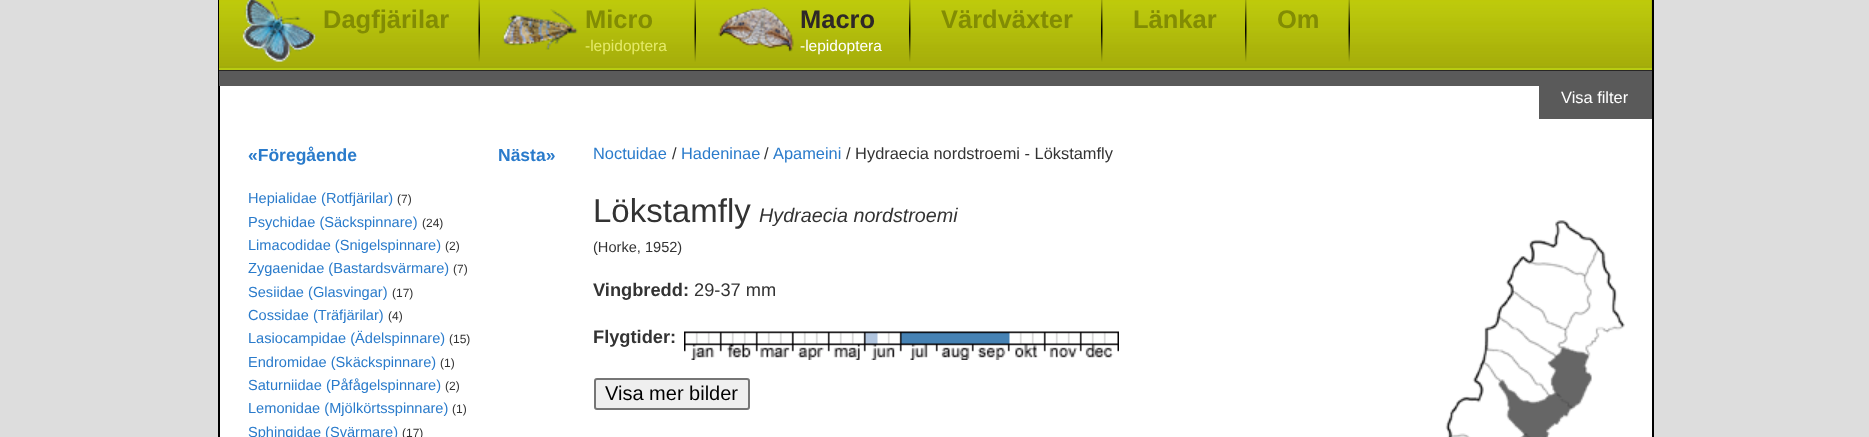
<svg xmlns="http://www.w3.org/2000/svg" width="1869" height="437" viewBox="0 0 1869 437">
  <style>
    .t1 { font: bold 25.5px Liberation Sans; fill: #828c04; }
    .t2 { font: 15.5px Liberation Sans; fill: #e5ea69; }
    .t3 { font: bold 25.5px Liberation Sans; fill: #2e2828; }
    .t4 { font: 15.5px Liberation Sans; fill: #fff; }
    .t5 { font: 16.4px Liberation Sans; fill: #fff; }
    .t6 { font: bold 17.5px Liberation Sans; fill: #2a7bcb; }
    .t7 { font: 14.6px Liberation Sans; fill: #2a7bcb; }
    .t8 { font: 12px Liberation Sans; fill: #333; }
    .t9 { font: 16.4px Liberation Sans; fill: #2a7bcb; }
    .t10 { font: 16.4px Liberation Sans; fill: #333; }
    .t11 { font: 33px Liberation Sans; fill: #333; }
    .t12 { font: italic 19.75px Liberation Sans; fill: #333; }
    .t13 { font: 14.6px Liberation Sans; fill: #333; }
    .t14 { font: bold 18.25px Liberation Sans; fill: #333; }
    .t15 { font: 18.25px Liberation Sans; fill: #333; }
    .t16 { font: 20px Liberation Sans; fill: #000; }
  </style>
  <rect width="100%" height="100%" fill="#ddd"/>
  <rect x="220" y="86" width="1432" height="351" fill="#fff"/>
  <rect x="1652" y="0" width="2" height="437" fill="#000"/>
  <rect x="218" y="0" width="2" height="437" fill="#000"/>
  <rect x="219" y="70" width="1433" height="1" fill="#282627"/>
  <rect x="219" y="71" width="1433" height="15" fill="#5a5a5a"/>
  <rect x="219" y="0" width="1433" height="68" fill="#a1ab0c"/>
  <image x="219" y="0" width="1433" height="66" href="images/1.png"/>
  <rect x="219" y="68" width="1433" height="2" fill="#b8cb11"/>
  <image x="478" y="0" width="2" height="62" href="images/2.png"/>
  <image x="242" y="0" width="75" height="63" href="images/3.png"/>
  <text x="323" y="28" class="t1">Dagfjärilar</text>
  <image x="694" y="0" width="2" height="62" href="images/2.png"/>
  <image x="502" y="9" width="76" height="41" href="images/4.png"/>
  <text x="585" y="28" class="t1">Micro</text>
  <text x="585" y="51" class="t2">-lepidoptera</text>
  <image x="909" y="0" width="2" height="62" href="images/5.png"/>
  <image x="718" y="7" width="76" height="45" href="images/6.png"/>
  <text x="800" y="28" class="t3">Macro</text>
  <text x="800" y="51" class="t4">-lepidoptera</text>
  <image x="1101" y="0" width="2" height="62" href="images/5.png"/>
  <text x="941" y="28" class="t1">Värdväxter</text>
  <image x="1245" y="0" width="2" height="62" href="images/5.png"/>
  <text x="1133" y="28" class="t1">Länkar</text>
  <image x="1348" y="0" width="2" height="62" href="images/2.png"/>
  <text x="1277" y="28" class="t1">Om</text>
  <rect x="1539" y="86" width="113" height="33" fill="#5a5a5a"/>
  <text x="1561" y="103" class="t5">Visa filter</text>
  <text x="248" y="161" class="t6">«Föregående</text>
  <text x="498" y="161" class="t6">Nästa»</text>
  <text x="248" y="203" class="t7">Hepialidae (Rotfjärilar)</text>
  <text x="397" y="203" class="t8">(7)</text>
  <text x="248" y="227" class="t7">Psychidae (Säckspinnare)</text>
  <text x="422" y="227" class="t8">(24)</text>
  <text x="248" y="250" class="t7">Limacodidae (Snigelspinnare)</text>
  <text x="445" y="250" class="t8">(2)</text>
  <text x="248" y="273" class="t7">Zygaenidae (Bastardsvärmare)</text>
  <text x="453" y="273" class="t8">(7)</text>
  <text x="248" y="297" class="t7">Sesiidae (Glasvingar)</text>
  <text x="392" y="297" class="t8">(17)</text>
  <text x="248" y="320" class="t7">Cossidae (Träfjärilar)</text>
  <text x="388" y="320" class="t8">(4)</text>
  <text x="248" y="343" class="t7">Lasiocampidae (Ädelspinnare)</text>
  <text x="449" y="343" class="t8">(15)</text>
  <text x="248" y="367" class="t7">Endromidae (Skäckspinnare)</text>
  <text x="440" y="367" class="t8">(1)</text>
  <text x="248" y="390" class="t7">Saturniidae (Påfågelspinnare)</text>
  <text x="445" y="390" class="t8">(2)</text>
  <text x="248" y="413" class="t7">Lemonidae (Mjölkörtsspinnare)</text>
  <text x="452" y="413" class="t8">(1)</text>
  <text x="248" y="437" class="t7">Sphingidae (Svärmare)</text>
  <text x="402" y="437" class="t8">(17)</text>
  <text x="593" y="159" class="t9">Noctuidae</text>
  <text x="672" y="159" class="t10">/</text>
  <text x="681" y="159" class="t9">Hadeninae</text>
  <text x="764" y="159" class="t10">/</text>
  <text x="773" y="159" class="t9">Apameini</text>
  <text x="846" y="159" class="t10">/ Hydraecia nordstroemi - Lökstamfly</text>
  <text x="593" y="222" class="t11">Lökstamfly</text>
  <text x="759" y="222" class="t12">Hydraecia nordstroemi</text>
  <text x="593" y="252" class="t13">(Horke, 1952)</text>
  <text x="593" y="296" class="t14">Vingbredd:</text>
  <text x="694" y="296" class="t15">29-37 mm</text>
  <text x="593" y="343" class="t14">Flygtider:</text>
  <image x="684" y="331" width="435" height="29" href="images/7.png"/>
  <rect x="595" y="379" width="154" height="30" rx="2" fill="#efefef" stroke="#767676" stroke-width="2"/>
  <text x="605" y="400" class="t16">Visa mer bilder</text>
  <image x="1445" y="220" width="180" height="217" href="images/8.png"/>
</svg>
